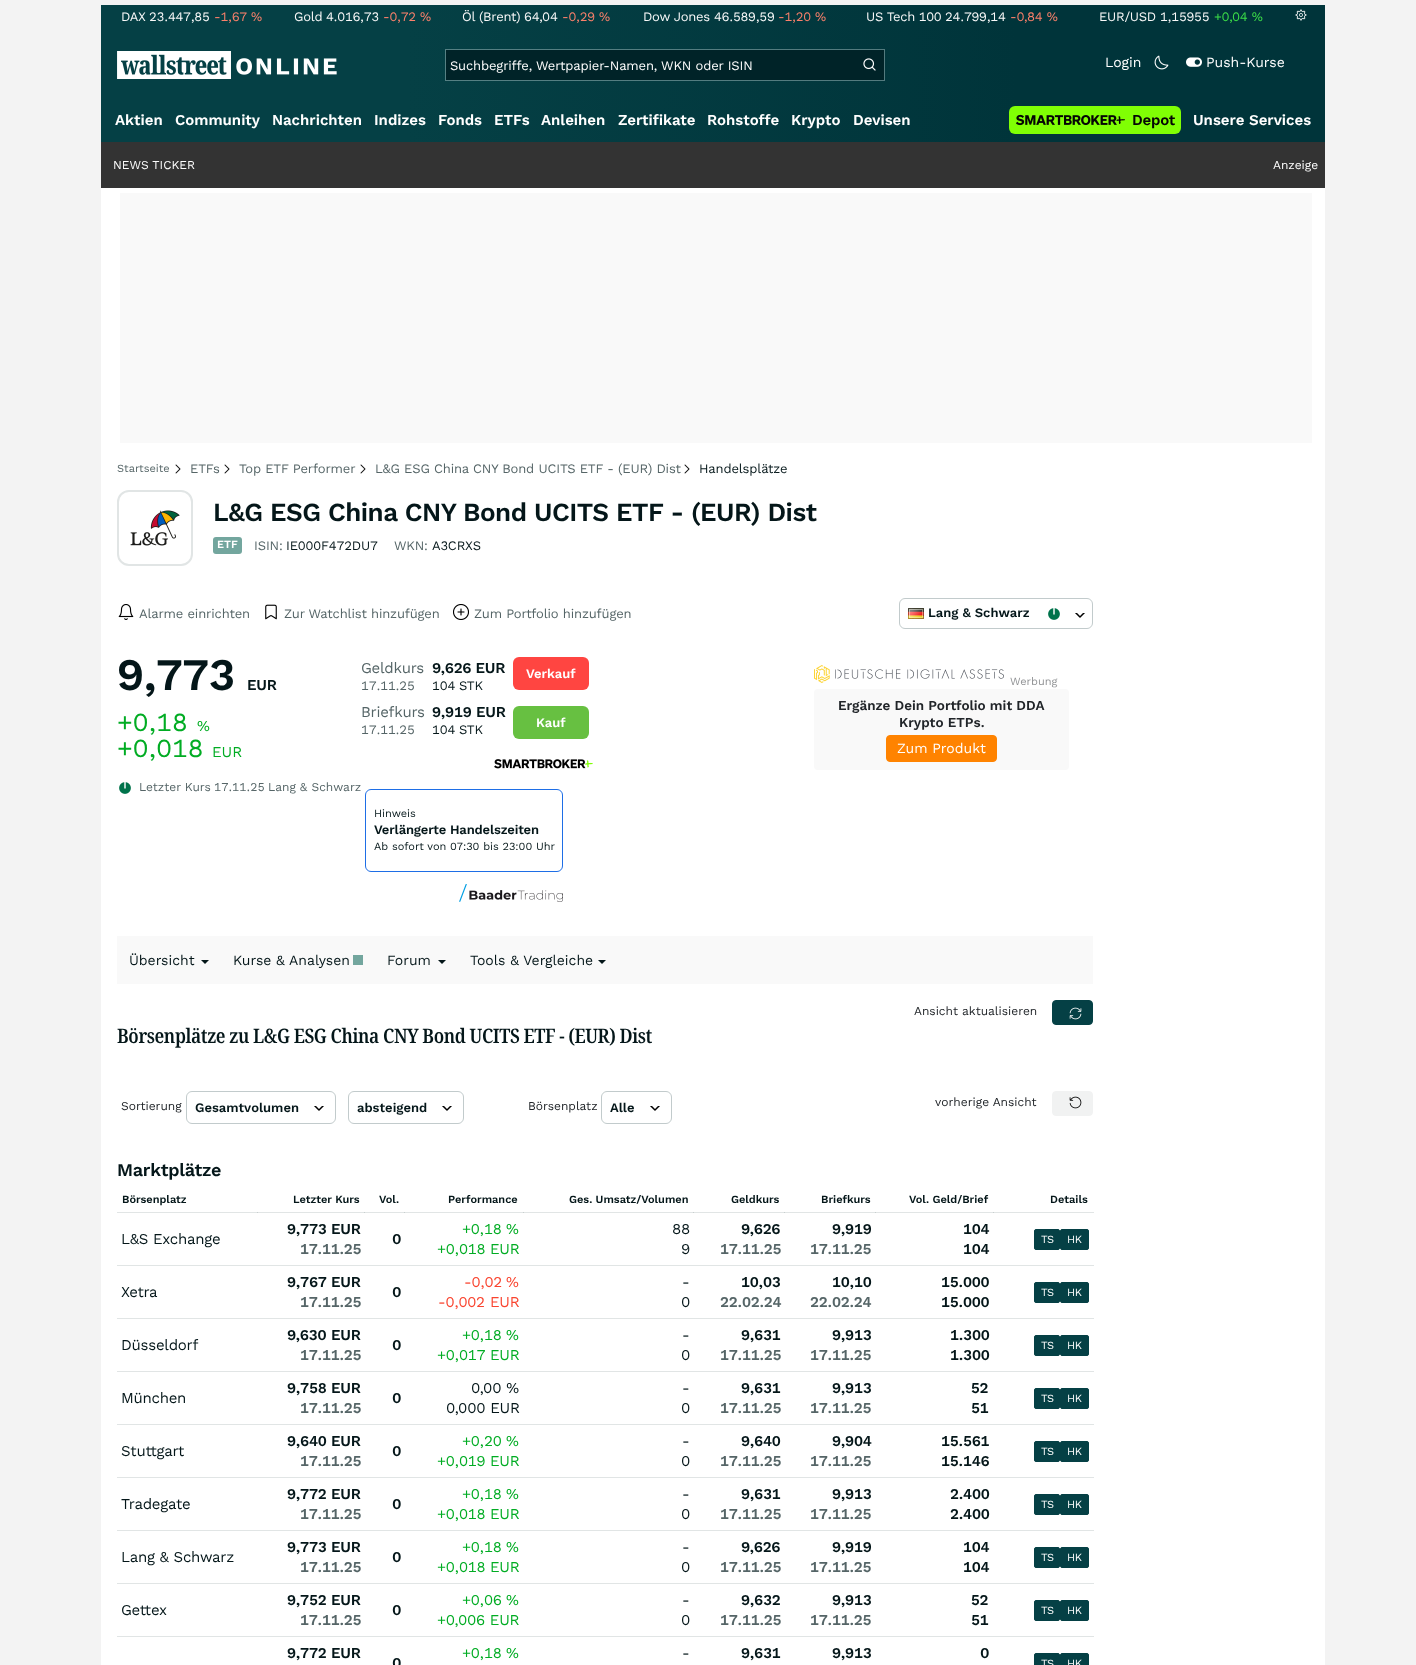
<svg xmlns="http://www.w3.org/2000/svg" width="1416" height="1665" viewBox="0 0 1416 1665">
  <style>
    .t1 { font: 13px Work Sans; letter-spacing: -0.25px; fill: #f9f9f9; }
    .t2 { font: 13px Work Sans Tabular; letter-spacing: -0.25px; fill: #f9f9f9; }
    .t3 { font: 13px Work Sans Tabular; letter-spacing: -0.25px; fill: #fb806b; }
    .t4 { font: 13px Work Sans; letter-spacing: -0.25px; fill: #fb806b; }
    .t5 { font: 13px Work Sans; letter-spacing: -0.25px; fill: #3bdd48; }
    .t6 { font: 13px Work Sans; letter-spacing: -0.15px; fill: #fff; }
    .t7 { font: 14px Work Sans; fill: #fff; }
    .t8 { font: 600 15px Work Sans; fill: #fff; }
    .t9 { font: 600 15px Work Sans; letter-spacing: -0.25px; fill: #050505; }
    .t10 { font: 12px Work Sans; fill: #fff; }
    .t11 { font: 11px Work Sans; fill: #556567; }
    .t12 { font: 13px Work Sans; letter-spacing: -0.15px; fill: #556567; }
    .t13 { font: 13px Work Sans; letter-spacing: -0.15px; fill: #041619; }
    .t14 { font: 600 26px Work Sans; letter-spacing: -0.5px; fill: #041619; }
    .t15 { font: 600 11px Work Sans; fill: #fff; }
    .t16 { font: 13px Work Sans Tabular; letter-spacing: -0.15px; fill: #041619; }
    .t17 { font: 600 13px Work Sans; fill: #041619; }
    .t18 { font: 600 45px Work Sans Tabular; letter-spacing: -1px; fill: #041619; }
    .t19 { font: 600 15px Work Sans; letter-spacing: -0.25px; fill: #041619; }
    .t20 { font: 26px 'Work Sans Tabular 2'; fill: #01ac23; }
    .t21 { font: 15px Work Sans; fill: #01ac23; }
    .t22 { font: 12px Work Sans; fill: #556567; }
    .t23 { font: 12px 'Work Sans Tabular 2'; fill: #556567; }
    .t24 { font: 15px Work Sans; letter-spacing: -0.25px; fill: #556567; }
    .t25 { font: 13px Work Sans Tabular; letter-spacing: -0.15px; fill: #556567; }
    .t26 { font: 600 15px Work Sans Tabular; letter-spacing: -0.25px; fill: #041619; }
    .t27 { font: 600 13px Work Sans; fill: #fff; }
    .t28 { font: 11px Work Sans; fill: #041619; }
    .t29 { font: 600 13px Work Sans; letter-spacing: -0.15px; fill: #041619; }
    .t30 { font: 11px Work Sans; fill: #909294; }
    .t31 { font: 600 13.5px Work Sans; fill: #212529; }
    .t32 { font: 14px Work Sans; fill: #041619; }
    .t33 { font: 12px Work Sans; fill: #212529; }
    .t34 { font: 600 20px Noto Serif; letter-spacing: -0.4px; fill: #041619; }
    .t35 { font: 600 18px Work Sans; letter-spacing: -0.25px; fill: #041619; }
    .t36 { font: 600 11px Work Sans; fill: #041619; }
    .t37 { font: 15px Work Sans; letter-spacing: -0.25px; fill: #041619; }
    .t38 { font: 600 15px Work Sans Tabular; letter-spacing: -0.25px; fill: #556567; }
    .t39 { font: 15px Work Sans Tabular; letter-spacing: -0.25px; fill: #01ac23; }
    .t40 { font: 15px Work Sans; letter-spacing: -0.25px; fill: #01ac23; }
    .t41 { font: 11px Work Sans; letter-spacing: -0.25px; fill: #fff; }
    .t42 { font: 15px Work Sans Tabular; letter-spacing: -0.25px; fill: #f9442f; }
    .t43 { font: 15px Work Sans; letter-spacing: -0.25px; fill: #f9442f; }
  </style>
  <defs>
    <linearGradient id="g1" gradientUnits="userSpaceOnUse" x1="101" y1="17" x2="1325" y2="17"><stop offset="0.25" stop-color="#054045"/><stop offset="0.75" stop-color="#00343a"/></linearGradient>
    <linearGradient id="g2" gradientUnits="userSpaceOnUse" x1="101" y1="65" x2="1325" y2="65"><stop offset="0.25" stop-color="#054045"/><stop offset="0.75" stop-color="#00343a"/></linearGradient>
    <linearGradient id="g3" gradientUnits="userSpaceOnUse" x1="101" y1="122" x2="1325" y2="121"><stop offset="0.25" stop-color="#054045"/><stop offset="0.75" stop-color="#00343a"/></linearGradient>
  </defs>
  <rect width="100%" height="100%" fill="#f3f3f3"/>
  <rect x="101" y="188" width="1224" height="1477" fill="#fff"/>
  <rect x="117" y="1212" width="977" height="1" fill="#e1e5e5"/>
  <rect x="257" y="1212" width="1" height="1" fill="#c7cece"/>
  <rect x="364" y="1212" width="1" height="1" fill="#c7cece"/>
  <rect x="404" y="1212" width="1" height="1" fill="#c7cece"/>
  <rect x="523" y="1212" width="1" height="1" fill="#c7cece"/>
  <rect x="693" y="1212" width="1" height="1" fill="#c7cece"/>
  <rect x="784" y="1212" width="1" height="1" fill="#c7cece"/>
  <rect x="875" y="1212" width="1" height="1" fill="#c7cece"/>
  <rect x="101" y="5" width="1224" height="24" fill="url(#g1)"/>
  <text x="121" y="21" class="t1">DAX</text>
  <text x="149" y="21" class="t2">23.447,85</text>
  <text x="214" y="21" class="t3">-1,67</text>
  <text x="251" y="21" class="t4">%</text>
  <text x="294" y="21" class="t1">Gold</text>
  <text x="326" y="21" class="t2">4.016,73</text>
  <text x="383" y="21" class="t3">-0,72</text>
  <text x="420" y="21" class="t4">%</text>
  <text x="462" y="21" class="t1">Öl (Brent)</text>
  <text x="524" y="21" class="t1">64,04</text>
  <text x="562" y="21" class="t3">-0,29</text>
  <text x="599" y="21" class="t4">%</text>
  <text x="643" y="21" class="t1">Dow Jones</text>
  <text x="714" y="21" class="t2">46.589,59</text>
  <text x="778" y="21" class="t3">-1,20</text>
  <text x="815" y="21" class="t4">%</text>
  <text x="866" y="21" class="t2">US Tech 100</text>
  <text x="945" y="21" class="t2">24.799,14</text>
  <text x="1010" y="21" class="t4">-0,84 %</text>
  <text x="1099" y="21" class="t1">EUR/USD</text>
  <text x="1160" y="21" class="t2">1,15955</text>
  <text x="1214" y="21" class="t5">+0,04 %</text>
  <image x="1295" y="9" width="12" height="12" href="images/1.png"/>
  <rect x="101" y="29" width="1224" height="72" fill="url(#g2)"/>
  <image x="117" y="51" width="220" height="28" href="images/2.png"/>
  <rect x="445.5" y="49.5" width="439" height="31" fill="none" stroke="#f2fefe57"/>
  <rect x="446" y="50" width="438" height="30" fill="#002328"/>
  <text x="450" y="70" class="t6">Suchbegriffe, Wertpapier-Namen, WKN oder ISIN</text>
  <image x="863" y="58" width="13" height="13" href="images/3.png"/>
  <text x="1105" y="67" class="t7">Login</text>
  <image x="1154" y="55" width="15" height="15" href="images/4.png"/>
  <image x="1186" y="57" width="16" height="10" href="images/5.png"/>
  <text x="1206" y="67" class="t7">Push-Kurse</text>
  <rect x="101" y="101" width="1224" height="41" fill="url(#g3)"/>
  <text x="115" y="125" class="t8">Aktien</text>
  <text x="175" y="125" class="t8">Community</text>
  <text x="272" y="125" class="t8">Nachrichten</text>
  <text x="374" y="125" class="t8">Indizes</text>
  <text x="438" y="125" class="t8">Fonds</text>
  <text x="494" y="125" class="t8">ETFs</text>
  <text x="541" y="125" class="t8">Anleihen</text>
  <text x="618" y="125" class="t8">Zertifikate</text>
  <text x="707" y="125" class="t8">Rohstoffe</text>
  <text x="791" y="125" class="t8">Krypto</text>
  <text x="853" y="125" class="t8">Devisen</text>
  <rect x="1009" y="106" width="172" height="28" rx="6" fill="#80ff04"/>
  <image x="1016" y="114" width="109" height="12" href="images/6.png"/>
  <text x="1132" y="125" class="t9">Depot</text>
  <text x="1193" y="125" class="t8">Unsere Services</text>
  <rect x="101" y="142" width="1224" height="46" fill="#333"/>
  <text x="113" y="169" class="t10">NEWS TICKER</text>
  <text x="1273" y="169" class="t10">Anzeige</text>
  <rect x="120" y="193" width="1192" height="250" fill="#f9f9f9"/>
  <text x="117" y="472" class="t11">Startseite</text>
  <image x="175" y="464" width="6" height="10" href="images/7.png"/>
  <text x="190" y="473" class="t12">ETFs</text>
  <image x="224" y="464" width="6" height="10" href="images/7.png"/>
  <text x="239" y="473" class="t12">Top ETF Performer</text>
  <image x="360" y="464" width="6" height="10" href="images/7.png"/>
  <text x="375" y="473" class="t12">L&amp;G ESG China CNY Bond UCITS ETF - (EUR) Dist</text>
  <image x="684" y="464" width="6" height="10" href="images/7.png"/>
  <text x="699" y="473" class="t13">Handelsplätze</text>
  <rect x="118" y="491" width="74" height="74" rx="11" fill="none" stroke="#e1e5e5" stroke-width="2"/>
  <image x="130" y="510" width="50" height="36" href="images/8.png"/>
  <text x="213" y="521" class="t14">L&amp;G ESG China CNY Bond UCITS ETF - (EUR) Dist</text>
  <rect x="213" y="537" width="29" height="17" rx="3" fill="#73a69e"/>
  <text x="217" y="548" class="t15">ETF</text>
  <text x="254" y="550" class="t12">ISIN:</text>
  <text x="286" y="550" class="t16">IE000F472DU7</text>
  <text x="394" y="550" class="t12">WKN:</text>
  <text x="432" y="550" class="t13">A3CRXS</text>
  <image x="118" y="604" width="16" height="16" href="images/9.png"/>
  <text x="139" y="618" class="t12">Alarme einrichten</text>
  <image x="265" y="604" width="12" height="16" href="images/10.png"/>
  <text x="284" y="618" class="t12">Zur Watchlist hinzufügen</text>
  <image x="453" y="604" width="16" height="16" href="images/11.png"/>
  <text x="474" y="618" class="t12">Zum Portfolio hinzufügen</text>
  <rect x="899.5" y="598.5" width="193" height="30" rx="5.5" fill="none" stroke="#c2cbcc"/>
  <image x="908" y="608" width="16" height="11" href="images/12.png"/>
  <text x="928" y="617" class="t17">Lang &amp; Schwarz</text>
  <image x="1048" y="608" width="12" height="12" href="images/13.png"/>
  <image x="1075" y="613" width="10" height="5" href="images/14.png"/>
  <text x="117" y="690" class="t18">9,773</text>
  <text x="247" y="690" class="t19">EUR</text>
  <text x="117" y="731" class="t20">+0,18</text>
  <text x="197" y="731" class="t21">%</text>
  <text x="117" y="757" class="t20">+0,018</text>
  <text x="212" y="757" class="t21">EUR</text>
  <image x="119" y="782" width="12" height="12" href="images/13.png"/>
  <text x="139" y="791" class="t22">Letzter Kurs</text>
  <text x="214" y="791" class="t23">17.11.25</text>
  <text x="268" y="791" class="t22">Lang &amp; Schwarz</text>
  <text x="361" y="673" class="t24">Geldkurs</text>
  <text x="361" y="690" class="t25">17.11.25</text>
  <text x="432" y="673" class="t19">9,626 EUR</text>
  <text x="432" y="690" class="t16">104</text>
  <text x="459" y="690" class="t13">STK</text>
  <text x="361" y="717" class="t24">Briefkurs</text>
  <text x="361" y="734" class="t25">17.11.25</text>
  <text x="432" y="717" class="t26">9,919</text>
  <text x="476" y="717" class="t19">EUR</text>
  <text x="432" y="734" class="t16">104</text>
  <text x="459" y="734" class="t13">STK</text>
  <rect x="513" y="657" width="76" height="33" rx="6" fill="#ff4541"/>
  <text x="526" y="678" class="t27">Verkauf</text>
  <rect x="513" y="706" width="76" height="33" rx="6" fill="#67c041"/>
  <text x="536" y="727" class="t27">Kauf</text>
  <image x="494" y="759" width="99" height="10" href="images/15.png"/>
  <rect x="365.5" y="789.5" width="197" height="82" rx="5.5" fill="none" stroke="#1e6ee6"/>
  <text x="374" y="817" class="t28">Hinweis</text>
  <text x="374" y="834" class="t29">Verlängerte Handelszeiten</text>
  <text x="374" y="850" class="t28">Ab sofort von 07:30 bis 23:00 Uhr</text>
  <image x="459" y="884" width="104" height="18" href="images/16.png"/>
  <image x="814" y="665" width="190" height="18" href="images/17.png"/>
  <text x="1010" y="685" class="t30">Werbung</text>
  <rect x="814" y="689" width="255" height="81" rx="4" fill="#f9f9f9"/>
  <text x="838" y="710" class="t31">Ergänze Dein Portfolio mit DDA</text>
  <text x="899" y="727" class="t31">Krypto ETPs.</text>
  <rect x="886.5" y="735.5" width="110" height="26" rx="3.5" fill="#ff8300" stroke="#ff8300"/>
  <text x="897" y="753" class="t7">Zum Produkt</text>
  <rect x="117" y="936" width="976" height="48" fill="#f9f9f9"/>
  <text x="129" y="965" class="t32">Übersicht</text>
  <path d="M201 960H209L205 964Z" fill="#041619"/>
  <text x="233" y="965" class="t32">Kurse &amp; Analysen</text>
  <rect x="353" y="955" width="10" height="10" fill="#73a69e"/>
  <text x="387" y="965" class="t32">Forum</text>
  <path d="M438 960H446L442 964Z" fill="#041619"/>
  <text x="470" y="965" class="t32">Tools &amp; Vergleiche</text>
  <path d="M598 960H606L602 964Z" fill="#041619"/>
  <text x="914" y="1015" class="t33">Ansicht aktualisieren</text>
  <rect x="1052.5" y="1000.5" width="40" height="24" rx="3.5" fill="#054045" stroke="#054045"/>
  <image x="1069" y="1007" width="13" height="13" href="images/18.png"/>
  <text x="117" y="1043" class="t34">Börsenplätze zu L&amp;G ESG China CNY Bond UCITS ETF - (EUR) Dist</text>
  <text x="121" y="1110" class="t33">Sortierung</text>
  <rect x="186.5" y="1091.5" width="149" height="32" rx="5.5" fill="none" stroke="#c2cbcc"/>
  <text x="195" y="1112" class="t17">Gesamtvolumen</text>
  <image x="314" y="1106" width="10" height="5" href="images/14.png"/>
  <rect x="348.5" y="1091.5" width="115" height="32" rx="5.5" fill="none" stroke="#c2cbcc"/>
  <text x="357" y="1112" class="t17">absteigend</text>
  <image x="442" y="1106" width="10" height="5" href="images/14.png"/>
  <text x="528" y="1110" class="t33">Börsenplatz</text>
  <rect x="601.5" y="1091.5" width="70" height="32" rx="5.5" fill="none" stroke="#c2cbcc"/>
  <text x="610" y="1112" class="t17">Alle</text>
  <image x="650" y="1106" width="10" height="5" href="images/14.png"/>
  <text x="935" y="1106" class="t33">vorherige Ansicht</text>
  <rect x="1052.5" y="1091.5" width="40" height="24" rx="3.5" fill="#f1f2f2" stroke="#f1f2f2"/>
  <image x="1069" y="1096" width="13" height="13" href="images/19.png"/>
  <text x="117" y="1176" class="t35">Marktplätze</text>
  <text x="122" y="1203" class="t36">Börsenplatz</text>
  <text x="293" y="1203" class="t36">Letzter Kurs</text>
  <text x="379" y="1203" class="t36">Vol.</text>
  <text x="448" y="1203" class="t36">Performance</text>
  <text x="569" y="1203" class="t36">Ges. Umsatz/Volumen</text>
  <text x="731" y="1203" class="t36">Geldkurs</text>
  <text x="821" y="1203" class="t36">Briefkurs</text>
  <text x="909" y="1203" class="t36">Vol. Geld/Brief</text>
  <rect x="993" y="1212" width="1" height="1" fill="#c7cece"/>
  <text x="1050" y="1203" class="t36">Details</text>
  <rect x="117" y="1265" width="977" height="1" fill="#e1e5e5"/>
  <text x="121" y="1244" class="t37">L&amp;S Exchange</text>
  <text x="287" y="1234" class="t26">9,773</text>
  <text x="331" y="1234" class="t19">EUR</text>
  <text x="300" y="1254" class="t38">17.11.25</text>
  <text x="392" y="1244" class="t19">0</text>
  <text x="462" y="1234" class="t39">+0,18</text>
  <text x="506" y="1234" class="t40">%</text>
  <text x="437" y="1254" class="t39">+0,018</text>
  <text x="490" y="1254" class="t40">EUR</text>
  <text x="672" y="1234" class="t37">88</text>
  <text x="681" y="1254" class="t37">9</text>
  <text x="741" y="1234" class="t19">9,626</text>
  <text x="720" y="1254" class="t38">17.11.25</text>
  <text x="832" y="1234" class="t26">9,919</text>
  <text x="810" y="1254" class="t38">17.11.25</text>
  <text x="963" y="1234" class="t26">104</text>
  <text x="963" y="1254" class="t26">104</text>
  <rect x="1034.5" y="1229.5" width="25" height="20" rx="1.5" fill="#054045" stroke="#054045"/>
  <text x="1041" y="1243" class="t41">TS</text>
  <rect x="1060.5" y="1229.5" width="28" height="20" rx="1.5" fill="#054045" stroke="#054045"/>
  <text x="1067" y="1243" class="t41">HK</text>
  <rect x="117" y="1318" width="977" height="1" fill="#e1e5e5"/>
  <text x="121" y="1297" class="t37">Xetra</text>
  <text x="287" y="1287" class="t26">9,767</text>
  <text x="331" y="1287" class="t19">EUR</text>
  <text x="300" y="1307" class="t38">17.11.25</text>
  <text x="392" y="1297" class="t19">0</text>
  <text x="464" y="1287" class="t42">-0,02</text>
  <text x="506" y="1287" class="t43">%</text>
  <text x="438" y="1307" class="t42">-0,002</text>
  <text x="490" y="1307" class="t43">EUR</text>
  <text x="682" y="1287" class="t37">-</text>
  <text x="681" y="1307" class="t37">0</text>
  <text x="741" y="1287" class="t26">10,03</text>
  <text x="720" y="1307" class="t38">22.02.24</text>
  <text x="832" y="1287" class="t26">10,10</text>
  <text x="810" y="1307" class="t38">22.02.24</text>
  <text x="941" y="1287" class="t26">15.000</text>
  <text x="941" y="1307" class="t26">15.000</text>
  <rect x="1034.5" y="1282.5" width="25" height="20" rx="1.5" fill="#054045" stroke="#054045"/>
  <text x="1041" y="1296" class="t41">TS</text>
  <rect x="1060.5" y="1282.5" width="28" height="20" rx="1.5" fill="#054045" stroke="#054045"/>
  <text x="1067" y="1296" class="t41">HK</text>
  <rect x="117" y="1371" width="977" height="1" fill="#e1e5e5"/>
  <text x="121" y="1350" class="t37">Düsseldorf</text>
  <text x="287" y="1340" class="t19">9,630</text>
  <text x="331" y="1340" class="t19">EUR</text>
  <text x="300" y="1360" class="t38">17.11.25</text>
  <text x="392" y="1350" class="t19">0</text>
  <text x="462" y="1340" class="t39">+0,18</text>
  <text x="506" y="1340" class="t40">%</text>
  <text x="437" y="1360" class="t39">+0,017</text>
  <text x="490" y="1360" class="t40">EUR</text>
  <text x="682" y="1340" class="t37">-</text>
  <text x="681" y="1360" class="t37">0</text>
  <text x="741" y="1340" class="t26">9,631</text>
  <text x="720" y="1360" class="t38">17.11.25</text>
  <text x="832" y="1340" class="t26">9,913</text>
  <text x="810" y="1360" class="t38">17.11.25</text>
  <text x="950" y="1340" class="t26">1.300</text>
  <text x="950" y="1360" class="t26">1.300</text>
  <rect x="1034.5" y="1335.5" width="25" height="20" rx="1.5" fill="#054045" stroke="#054045"/>
  <text x="1041" y="1349" class="t41">TS</text>
  <rect x="1060.5" y="1335.5" width="28" height="20" rx="1.5" fill="#054045" stroke="#054045"/>
  <text x="1067" y="1349" class="t41">HK</text>
  <rect x="117" y="1424" width="977" height="1" fill="#e1e5e5"/>
  <text x="121" y="1403" class="t37">München</text>
  <text x="287" y="1393" class="t26">9,758</text>
  <text x="331" y="1393" class="t19">EUR</text>
  <text x="300" y="1413" class="t38">17.11.25</text>
  <text x="392" y="1403" class="t19">0</text>
  <text x="471" y="1393" class="t37">0,00 %</text>
  <text x="446" y="1413" class="t37">0,000 EUR</text>
  <text x="682" y="1393" class="t37">-</text>
  <text x="681" y="1413" class="t37">0</text>
  <text x="741" y="1393" class="t26">9,631</text>
  <text x="720" y="1413" class="t38">17.11.25</text>
  <text x="832" y="1393" class="t26">9,913</text>
  <text x="810" y="1413" class="t38">17.11.25</text>
  <text x="971" y="1393" class="t19">52</text>
  <text x="971" y="1413" class="t26">51</text>
  <rect x="1034.5" y="1388.5" width="25" height="20" rx="1.5" fill="#054045" stroke="#054045"/>
  <text x="1041" y="1402" class="t41">TS</text>
  <rect x="1060.5" y="1388.5" width="28" height="20" rx="1.5" fill="#054045" stroke="#054045"/>
  <text x="1067" y="1402" class="t41">HK</text>
  <rect x="117" y="1477" width="977" height="1" fill="#e1e5e5"/>
  <text x="121" y="1456" class="t37">Stuttgart</text>
  <text x="287" y="1446" class="t26">9,640</text>
  <text x="331" y="1446" class="t19">EUR</text>
  <text x="300" y="1466" class="t38">17.11.25</text>
  <text x="392" y="1456" class="t19">0</text>
  <text x="462" y="1446" class="t39">+0,20</text>
  <text x="506" y="1446" class="t40">%</text>
  <text x="437" y="1466" class="t39">+0,019</text>
  <text x="490" y="1466" class="t40">EUR</text>
  <text x="682" y="1446" class="t37">-</text>
  <text x="681" y="1466" class="t37">0</text>
  <text x="741" y="1446" class="t26">9,640</text>
  <text x="720" y="1466" class="t38">17.11.25</text>
  <text x="832" y="1446" class="t26">9,904</text>
  <text x="810" y="1466" class="t38">17.11.25</text>
  <text x="941" y="1446" class="t26">15.561</text>
  <text x="941" y="1466" class="t26">15.146</text>
  <rect x="1034.5" y="1441.5" width="25" height="20" rx="1.5" fill="#054045" stroke="#054045"/>
  <text x="1041" y="1455" class="t41">TS</text>
  <rect x="1060.5" y="1441.5" width="28" height="20" rx="1.5" fill="#054045" stroke="#054045"/>
  <text x="1067" y="1455" class="t41">HK</text>
  <rect x="117" y="1530" width="977" height="1" fill="#e1e5e5"/>
  <text x="121" y="1509" class="t37">Tradegate</text>
  <text x="287" y="1499" class="t26">9,772</text>
  <text x="331" y="1499" class="t19">EUR</text>
  <text x="300" y="1519" class="t38">17.11.25</text>
  <text x="392" y="1509" class="t19">0</text>
  <text x="462" y="1499" class="t39">+0,18</text>
  <text x="506" y="1499" class="t40">%</text>
  <text x="437" y="1519" class="t39">+0,018</text>
  <text x="490" y="1519" class="t40">EUR</text>
  <text x="682" y="1499" class="t37">-</text>
  <text x="681" y="1519" class="t37">0</text>
  <text x="741" y="1499" class="t26">9,631</text>
  <text x="720" y="1519" class="t38">17.11.25</text>
  <text x="832" y="1499" class="t26">9,913</text>
  <text x="810" y="1519" class="t38">17.11.25</text>
  <text x="950" y="1499" class="t26">2.400</text>
  <text x="950" y="1519" class="t26">2.400</text>
  <rect x="1034.5" y="1494.5" width="25" height="20" rx="1.5" fill="#054045" stroke="#054045"/>
  <text x="1041" y="1508" class="t41">TS</text>
  <rect x="1060.5" y="1494.5" width="28" height="20" rx="1.5" fill="#054045" stroke="#054045"/>
  <text x="1067" y="1508" class="t41">HK</text>
  <rect x="117" y="1583" width="977" height="1" fill="#e1e5e5"/>
  <text x="121" y="1562" class="t37">Lang &amp; Schwarz</text>
  <text x="287" y="1552" class="t26">9,773</text>
  <text x="331" y="1552" class="t19">EUR</text>
  <text x="300" y="1572" class="t38">17.11.25</text>
  <text x="392" y="1562" class="t19">0</text>
  <text x="462" y="1552" class="t39">+0,18</text>
  <text x="506" y="1552" class="t40">%</text>
  <text x="437" y="1572" class="t39">+0,018</text>
  <text x="490" y="1572" class="t40">EUR</text>
  <text x="682" y="1552" class="t37">-</text>
  <text x="681" y="1572" class="t37">0</text>
  <text x="741" y="1552" class="t19">9,626</text>
  <text x="720" y="1572" class="t38">17.11.25</text>
  <text x="832" y="1552" class="t26">9,919</text>
  <text x="810" y="1572" class="t38">17.11.25</text>
  <text x="963" y="1552" class="t26">104</text>
  <text x="963" y="1572" class="t26">104</text>
  <rect x="1034.5" y="1547.5" width="25" height="20" rx="1.5" fill="#054045" stroke="#054045"/>
  <text x="1041" y="1561" class="t41">TS</text>
  <rect x="1060.5" y="1547.5" width="28" height="20" rx="1.5" fill="#054045" stroke="#054045"/>
  <text x="1067" y="1561" class="t41">HK</text>
  <rect x="117" y="1636" width="977" height="1" fill="#e1e5e5"/>
  <text x="121" y="1615" class="t37">Gettex</text>
  <text x="287" y="1605" class="t26">9,752</text>
  <text x="331" y="1605" class="t19">EUR</text>
  <text x="300" y="1625" class="t38">17.11.25</text>
  <text x="392" y="1615" class="t19">0</text>
  <text x="462" y="1605" class="t39">+0,06</text>
  <text x="506" y="1605" class="t40">%</text>
  <text x="437" y="1625" class="t40">+0,006 EUR</text>
  <text x="682" y="1605" class="t37">-</text>
  <text x="681" y="1625" class="t37">0</text>
  <text x="741" y="1605" class="t26">9,632</text>
  <text x="720" y="1625" class="t38">17.11.25</text>
  <text x="832" y="1605" class="t26">9,913</text>
  <text x="810" y="1625" class="t38">17.11.25</text>
  <text x="971" y="1605" class="t19">52</text>
  <text x="971" y="1625" class="t26">51</text>
  <rect x="1034.5" y="1600.5" width="25" height="20" rx="1.5" fill="#054045" stroke="#054045"/>
  <text x="1041" y="1614" class="t41">TS</text>
  <rect x="1060.5" y="1600.5" width="28" height="20" rx="1.5" fill="#054045" stroke="#054045"/>
  <text x="1067" y="1614" class="t41">HK</text>
  <text x="287" y="1658" class="t26">9,772</text>
  <text x="331" y="1658" class="t19">EUR</text>
  <text x="462" y="1658" class="t39">+0,18</text>
  <text x="506" y="1658" class="t40">%</text>
  <text x="682" y="1658" class="t37">-</text>
  <text x="741" y="1658" class="t26">9,631</text>
  <text x="832" y="1658" class="t26">9,913</text>
  <text x="980" y="1658" class="t19">0</text>
  <text x="392" y="1668" class="t19">0</text>
  <rect x="1034.5" y="1653.5" width="25" height="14" rx="1.5" fill="#054045" stroke="#054045"/>
  <text x="1041" y="1667" class="t41">TS</text>
  <rect x="1060.5" y="1653.5" width="28" height="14" rx="1.5" fill="#054045" stroke="#054045"/>
  <text x="1067" y="1667" class="t41">HK</text>
</svg>
